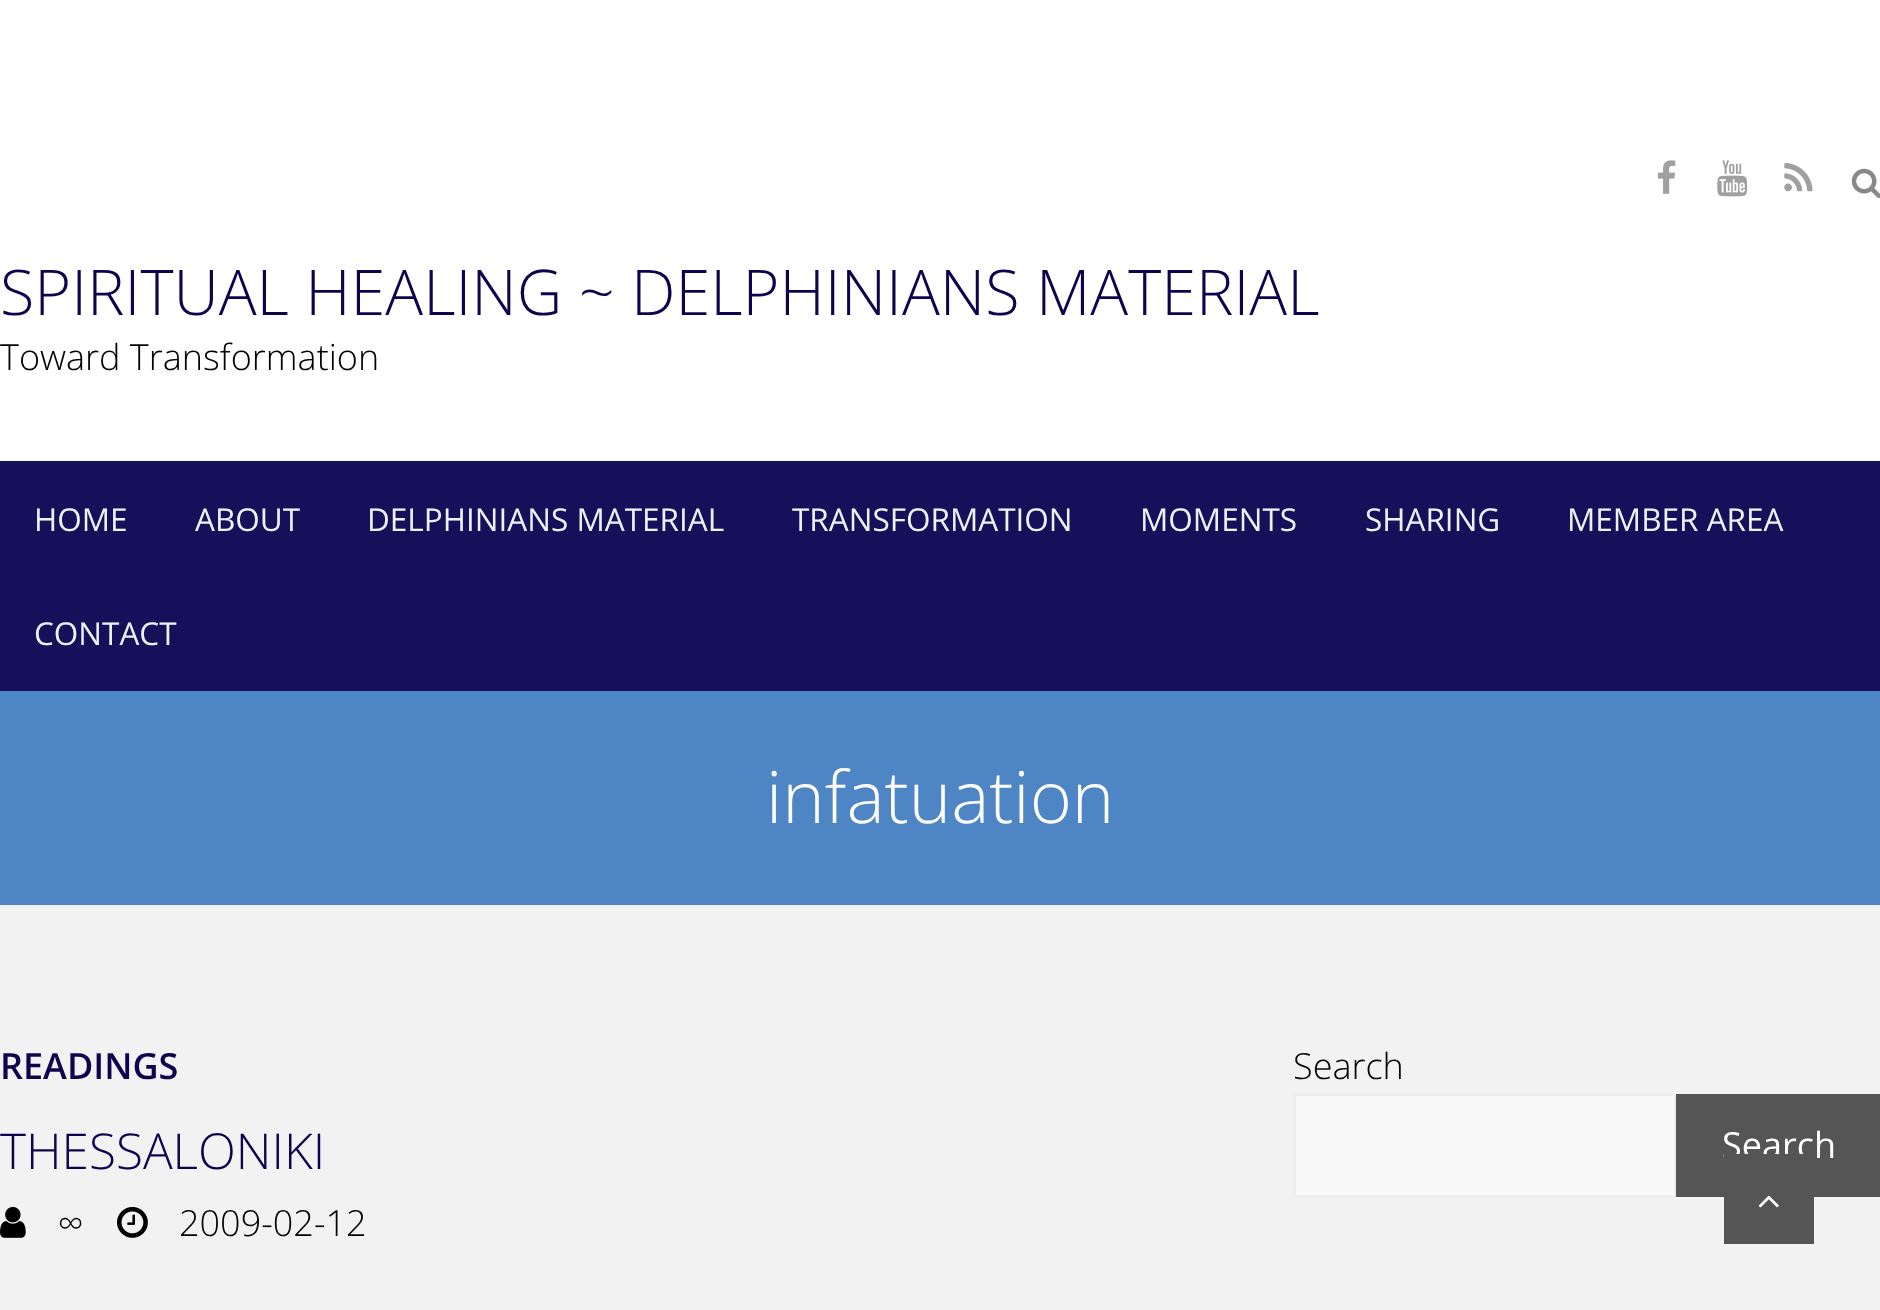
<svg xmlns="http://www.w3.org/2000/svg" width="1880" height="1310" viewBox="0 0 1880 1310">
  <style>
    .t1 { font: 300 63px Open Sans; fill: #0f034e; }
    .t2 { font: 300 36px Open Sans; fill: #000; }
    .t3 { font: 31.5px Open Sans; fill: #edf3f9; }
    .t4 { font: 300 72px Open Sans; fill: #fff; }
    .t5 { font: 600 36px Open Sans; fill: #0f034e; }
    .t6 { font: 300 49.5px Open Sans; fill: #0f034e; }
    .t7 { font: 36px Open Sans; fill: #fff; }
  </style>
  <rect width="100%" height="100%" fill="#fff"/>
  <image x="1657" y="160" width="19" height="34" href="images/1.png"/>
  <image x="1717" y="160" width="31" height="37" href="images/2.png"/>
  <image x="1784" y="163" width="29" height="29" href="images/3.png"/>
  <image x="1851" y="168" width="29" height="30" href="images/4.png"/>
  <text x="0" y="315" class="t1">SPIRITUAL HEALING ~ DELPHINIANS MATERIAL</text>
  <text x="0" y="370" class="t2">Toward Transformation</text>
  <rect x="0" y="691" width="1880" height="214" fill="#4d85c5"/>
  <rect x="0" y="461" width="1880" height="230" fill="#15105a"/>
  <text x="34" y="531" class="t3">HOME</text>
  <text x="195" y="531" class="t3">ABOUT</text>
  <text x="367" y="531" class="t3">DELPHINIANS MATERIAL</text>
  <text x="792" y="531" class="t3">TRANSFORMATION</text>
  <text x="1140" y="531" class="t3">MOMENTS</text>
  <text x="1365" y="531" class="t3">SHARING</text>
  <text x="1567" y="531" class="t3">MEMBER AREA</text>
  <text x="34" y="645" class="t3">CONTACT</text>
  <text x="766" y="823" class="t4">infatuation</text>
  <rect x="0" y="905" width="1880" height="405" fill="#f2f2f2"/>
  <text x="0" y="1079" class="t5">READINGS</text>
  <text x="0" y="1169" class="t6">THESSALONIKI</text>
  <image x="0" y="1207" width="26" height="31" href="images/5.png"/>
  <text x="58" y="1236" class="t2">∞</text>
  <image x="117" y="1207" width="31" height="31" href="images/6.png"/>
  <text x="179" y="1236" class="t2">2009-02-12</text>
  <text x="1293" y="1079" class="t2">Search</text>
  <rect x="1295" y="1095" width="380" height="101" fill="#f9f9f9" stroke="#ededed" stroke-width="2"/>
  <rect x="1676" y="1094" width="204" height="103" fill="#555"/>
  <text x="1722" y="1158" class="t7">Search</text>
  <rect x="1724" y="1154" width="90" height="90" fill="#555"/>
  <image x="1758" y="1195" width="21" height="13" href="images/7.png"/>
</svg>
